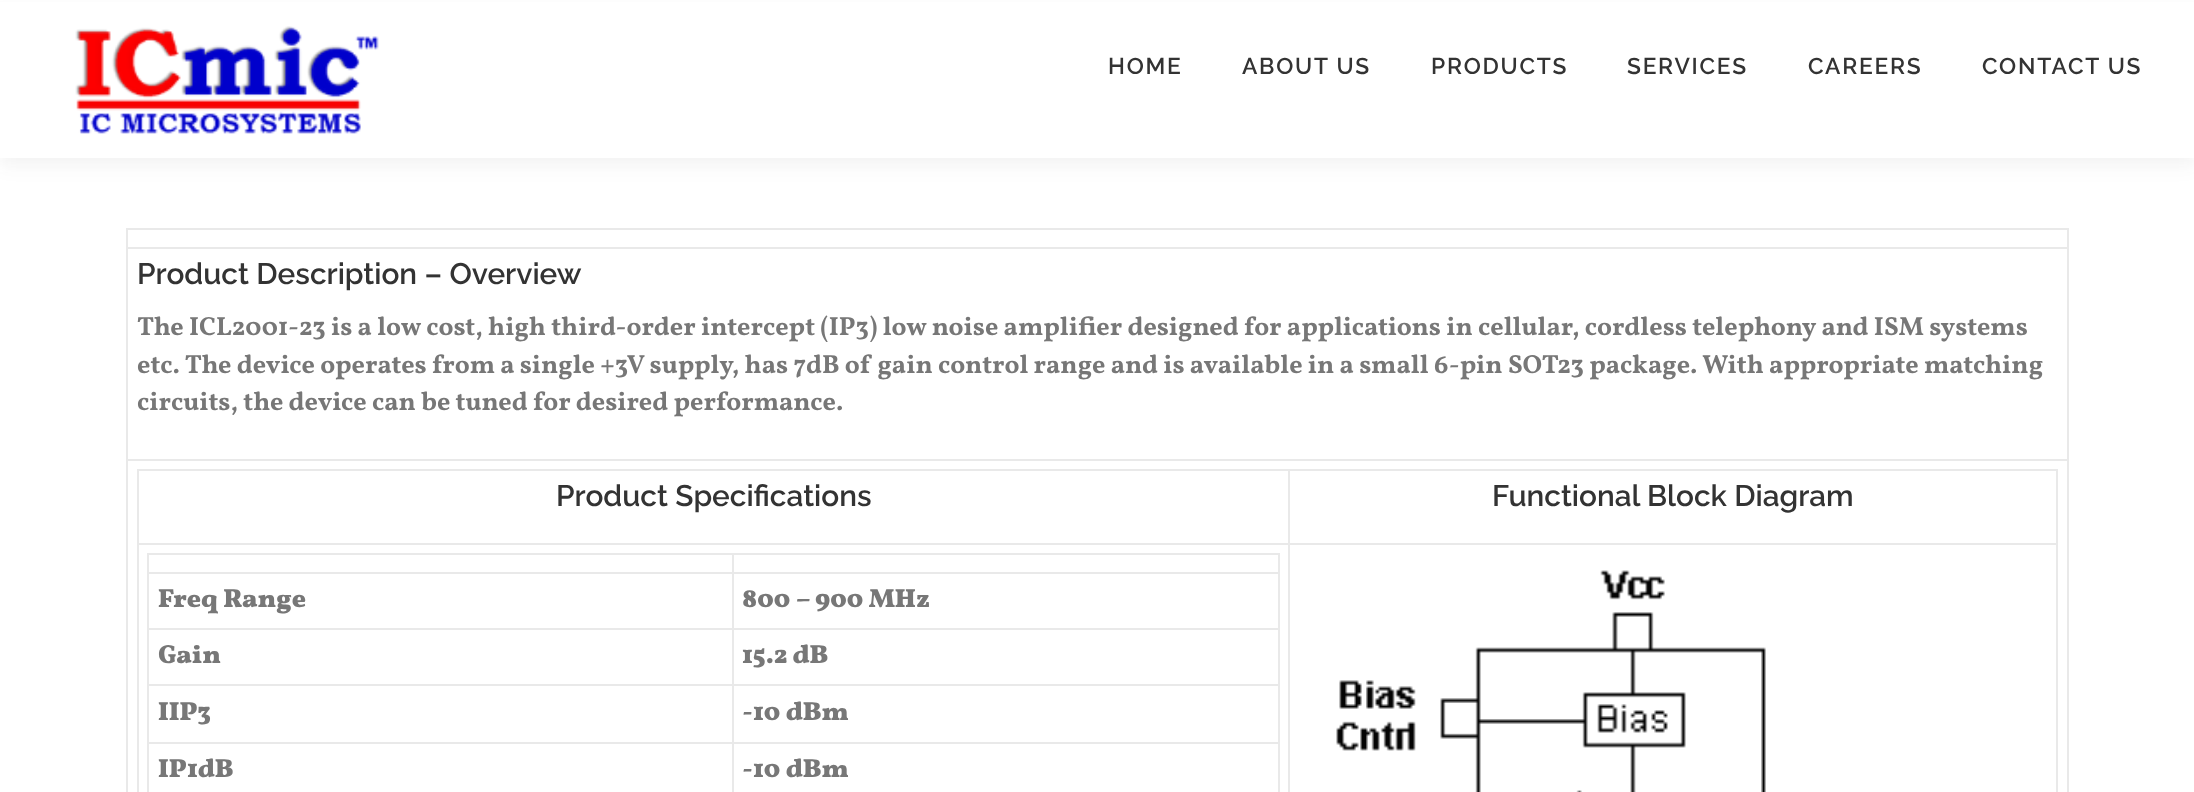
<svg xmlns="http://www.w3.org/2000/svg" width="2194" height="792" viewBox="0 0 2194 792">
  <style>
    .t1 { font: 600 22.75px Raleway; letter-spacing: 1.75px; fill: #333; }
    .t2 { font: 600 29.75px Raleway; fill: #333; }
    .t3 { font: bold 26.25px Vollkorn; fill: #777; }
    .t4 { font: 900 26.25px Vollkorn; fill: #777; }
  </style>
  <rect width="100%" height="100%" fill="#fff"/>
  <rect x="0" y="9" width="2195" height="157" fill="#3232320f" filter="blur(9px)"/>
  <rect x="0" y="2" width="2194" height="156" fill="#fff"/>
  <image x="75" y="26" width="304" height="108" href="images/1.png"/>
  <text x="1108" y="74" class="t1">HOME</text>
  <text x="1242" y="74" class="t1">ABOUT US</text>
  <text x="1431" y="74" class="t1">PRODUCTS</text>
  <text x="1627" y="74" class="t1">SERVICES</text>
  <text x="1808" y="74" class="t1">CAREERS</text>
  <text x="1982" y="74" class="t1">CONTACT US</text>
  <rect x="126" y="228" width="1943" height="2" fill="#e9e9e9"/>
  <rect x="2067" y="228" width="2" height="564" fill="#e9e9e9"/>
  <rect x="126" y="228" width="2" height="564" fill="#e9e9e9"/>
  <rect x="126" y="247" width="1943" height="2" fill="#e9e9e9"/>
  <text x="137" y="284" class="t2">Product Description – Overview</text>
  <text x="137" y="335" class="t3">The ICL2001-23 is a low cost, high third-order intercept (IP3) low noise amplifier designed for applications in cellular, cordless telephony and ISM systems</text>
  <text x="137" y="373" class="t3">etc. The device operates from a single +3V supply, has 7dB of gain control range and is available in a small 6-pin SOT23 package. With appropriate matching</text>
  <text x="137" y="410" class="t3">circuits, the device can be tuned for desired performance.</text>
  <rect x="126" y="459" width="1943" height="2" fill="#e9e9e9"/>
  <rect x="137" y="469" width="1921" height="2" fill="#e9e9e9"/>
  <rect x="2056" y="469" width="2" height="323" fill="#e9e9e9"/>
  <rect x="137" y="469" width="2" height="323" fill="#e9e9e9"/>
  <text x="556" y="506" class="t2">Product Specifications</text>
  <rect x="1288" y="543" width="770" height="2" fill="#e9e9e9"/>
  <rect x="1288" y="543" width="2" height="249" fill="#e9e9e9"/>
  <rect x="137" y="543" width="1153" height="2" fill="#e9e9e9"/>
  <rect x="1288" y="469" width="2" height="75" fill="#e9e9e9"/>
  <text x="1492" y="506" class="t2">Functional Block Diagram</text>
  <rect x="147" y="553" width="1132" height="2" fill="#e9e9e9"/>
  <rect x="1278" y="553" width="2" height="239" fill="#e9e9e9"/>
  <rect x="147" y="553" width="2" height="239" fill="#e9e9e9"/>
  <rect x="732" y="572" width="547" height="2" fill="#e9e9e9"/>
  <rect x="732" y="628" width="547" height="2" fill="#e9e9e9"/>
  <rect x="732" y="684" width="547" height="2" fill="#e9e9e9"/>
  <rect x="732" y="742" width="547" height="2" fill="#e9e9e9"/>
  <rect x="732" y="742" width="2" height="50" fill="#e9e9e9"/>
  <rect x="147" y="742" width="586" height="2" fill="#e9e9e9"/>
  <rect x="732" y="684" width="2" height="60" fill="#e9e9e9"/>
  <rect x="147" y="684" width="586" height="2" fill="#e9e9e9"/>
  <rect x="732" y="628" width="2" height="58" fill="#e9e9e9"/>
  <rect x="147" y="628" width="586" height="2" fill="#e9e9e9"/>
  <rect x="732" y="572" width="2" height="58" fill="#e9e9e9"/>
  <rect x="147" y="572" width="586" height="2" fill="#e9e9e9"/>
  <rect x="732" y="553" width="2" height="21" fill="#e9e9e9"/>
  <text x="158" y="607" class="t4">Freq Range</text>
  <text x="742" y="607" class="t4">800 – 900 MHz</text>
  <text x="158" y="663" class="t4">Gain</text>
  <text x="742" y="663" class="t4">15.2 dB</text>
  <text x="158" y="720" class="t4">IIP3</text>
  <text x="742" y="720" class="t4">-10 dBm</text>
  <text x="158" y="777" class="t4">IP1dB</text>
  <text x="742" y="777" class="t4">-10 dBm</text>
  <image x="1336" y="570" width="430" height="222" href="images/2.png"/>
</svg>
